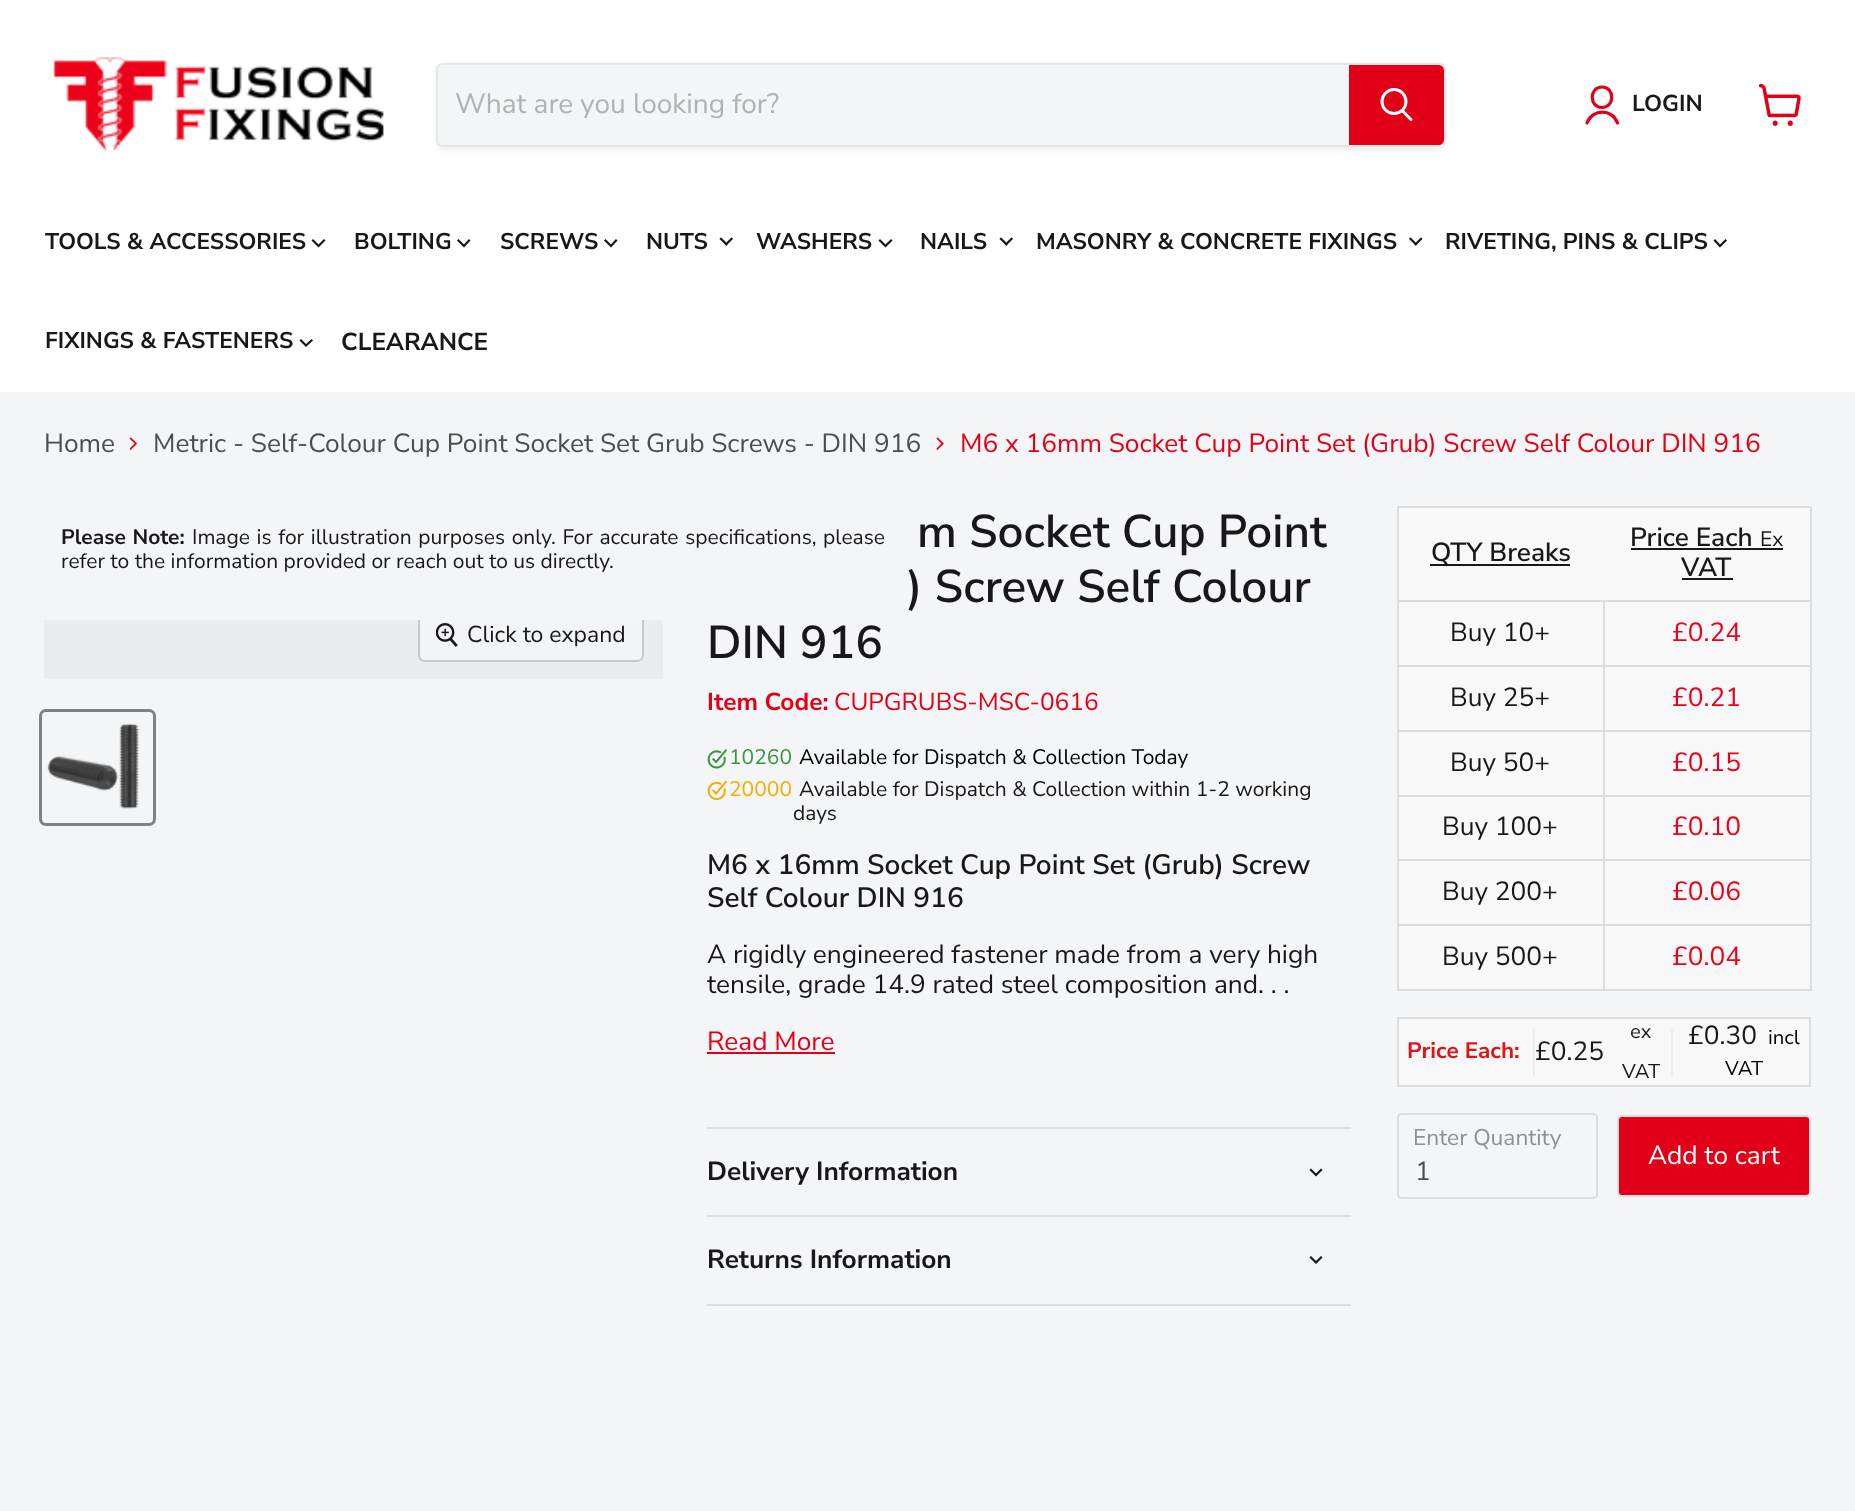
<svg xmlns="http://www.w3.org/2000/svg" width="1855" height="1511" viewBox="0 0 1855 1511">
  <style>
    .t1 { font: 28px Nunito Sans; fill: #b1b2b2; }
    .t2 { font: bold 23px Nunito Sans; fill: #1a171b; }
    .t3 { font: bold 22.75px Nunito Sans; fill: #1a171b; }
    .t4 { font: bold 24.5px Nunito Sans; fill: #1a171b; }
    .t5 { font: 26.25px Nunito Sans; fill: #4d4d4d; }
    .t6 { font: 26.25px Nunito Sans; fill: #e20018; }
    .t7 { font: bold 21px Nunito Sans; fill: #1a171b; }
    .t8 { font: 21px Nunito Sans; fill: #1a171b; }
    .t9 { font: 600 46px Nunito Sans; fill: #1a171b; }
    .t10 { font: bold 24.5px Nunito Sans; fill: #e20018; }
    .t11 { font: 24.5px Nunito Sans; fill: #e20018; }
    .t12 { font: 21px Nunito Sans; fill: #3c9342; }
    .t13 { font: 21px Nunito Sans; fill: #000; }
    .t14 { font: 21px Nunito Sans; fill: #f2ad00; }
    .t15 { font: 600 28px Nunito Sans; fill: #1a171b; }
    .t16 { font: 26.25px Nunito Sans; fill: #1a171b; }
    .t17 { font: bold 26.25px Nunito Sans; fill: #1a171b; }
    .t18 { font: 600 26.25px Nunito Sans; fill: #1a171b; }
    .t19 { font: 26.25px Nunito Sans; fill: #ed0019; }
    .t20 { font: bold 22.5px Nunito Sans; fill: #e21317; }
    .t21 { font: 20px 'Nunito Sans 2'; fill: #1a171b; }
    .t22 { font: 20px 'Nunito Sans 2'; fill: #000; }
    .t23 { font: 22.75px Nunito Sans; fill: #8f9091; }
    .t24 { font: 26.25px Nunito Sans; fill: #fff; }
    .t25 { font: 23px Nunito Sans; fill: #1a171b; }
  </style>
  <defs>
    <clipPath id="clip1"><path d="M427 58H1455V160H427ZM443 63H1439C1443 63 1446 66 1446 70V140C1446 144 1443 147 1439 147H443C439 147 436 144 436 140V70C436 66 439 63 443 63Z" clip-rule="evenodd"/></clipPath>
    <clipPath id="clip2"><rect x="44" y="620" width="619" height="59"/></clipPath>
  </defs>
  <rect width="100%" height="100%" fill="#f3f5f6"/>
  <rect x="0" y="0" width="1855" height="392" fill="#fff"/>
  <image x="53" y="56" width="331" height="96" href="images/1.png"/>
  <g clip-path="url(#clip1)">
    <rect x="436" y="67" width="1010" height="84" rx="7" fill="#7a7b7b1c" filter="blur(2.5px)"/>
  </g>
  <rect x="437" y="64" width="1008" height="82" rx="6" fill="none" stroke="#7a7b7b33" stroke-width="2"/>
  <path d="M443 65H1349V145H443C440 145 438 143 438 140V70C438 67 440 65 443 65Z" fill="#f3f5f6"/>
  <text x="455" y="113" class="t1">What are you looking for?</text>
  <path d="M1350 66H1439C1441 66 1443 68 1443 70V140C1443 142 1441 144 1439 144H1350Z" fill="#e20018" stroke="#e20018" stroke-width="2"/>
  <path d="M1411 119.5L1402.5 111" fill="none" stroke="#fff" stroke-width="3" stroke-linecap="round"/>
  <circle cx="1394" cy="101.5" r="12" fill="none" stroke="#fff" stroke-width="3"/>
  <path d="M1602 107.5C1615 107.5 1615 87 1602 87C1589 87 1589 107.5 1602 107.5ZM1617.5 123C1612.5 108.5 1592 108.5 1587 123" fill="none" stroke="#e20018" stroke-width="3.2" stroke-linecap="round" stroke-linejoin="round"/>
  <text x="1632" y="111" class="t2">LOGIN</text>
  <image x="1759" y="84" width="42" height="42" href="images/2.png"/>
  <text x="45" y="249" class="t3">TOOLS &amp; ACCESSORIES</text>
  <path d="M318.5 246L324 240.5M318.5 246L313 240.5" fill="none" stroke="#1a171b" stroke-width="2.2" stroke-linecap="square"/>
  <text x="354" y="249" class="t3">BOLTING</text>
  <path d="M464 246L469 240.5M464 246L458.5 240.5" fill="none" stroke="#1a171b" stroke-width="2.2" stroke-linecap="square"/>
  <text x="500" y="249" class="t3">SCREWS</text>
  <path d="M611 246L616 240.5M611 246L605.5 240.5" fill="none" stroke="#1a171b" stroke-width="2.2" stroke-linecap="square"/>
  <text x="646" y="249" class="t3">NUTS</text>
  <image x="719" y="237" width="14" height="9" href="images/3.png"/>
  <text x="756" y="249" class="t3">WASHERS</text>
  <path d="M885.5 246L891 240.5M885.5 246L880 240.5" fill="none" stroke="#1a171b" stroke-width="2.2" stroke-linecap="square"/>
  <text x="920" y="249" class="t3">NAILS</text>
  <image x="999" y="237" width="14" height="9" href="images/3.png"/>
  <text x="1036" y="249" class="t3">MASONRY &amp; CONCRETE FIXINGS</text>
  <image x="1409" y="237" width="14" height="9" href="images/4.png"/>
  <text x="1445" y="249" class="t3">RIVETING, PINS &amp; CLIPS</text>
  <path d="M1720 246L1725.5 240.5M1720 246L1715 240.5" fill="none" stroke="#1a171b" stroke-width="2.2" stroke-linecap="square"/>
  <text x="45" y="348" class="t3">FIXINGS &amp; FASTENERS</text>
  <path d="M306 345.5L311.5 340.5M306 345.5L301 340.5" fill="none" stroke="#1a171b" stroke-width="2.2" stroke-linecap="square"/>
  <text x="341" y="350" class="t4">CLEARANCE</text>
  <text x="44" y="452" class="t5">Home</text>
  <image x="129" y="437" width="8" height="13" href="images/5.png"/>
  <text x="153" y="452" class="t5">Metric - Self-Colour Cup Point Socket Set Grub Screws - DIN 916</text>
  <image x="936" y="437" width="8" height="13" href="images/6.png"/>
  <text x="960" y="452" class="t6">M6 x 16mm Socket Cup Point Set (Grub) Screw Self Colour DIN 916</text>
  <text x="61" y="544" word-spacing="1" class="t7">Please Note:</text>
  <text x="192" y="544" word-spacing="1.25" class="t8">Image is for illustration purposes only. For accurate specifications, please</text>
  <text x="61" y="568" class="t8">refer to the information provided or reach out to us directly.</text>
  <text x="917" y="547" class="t9">m Socket Cup Point</text>
  <text x="907" y="602" class="t9">) Screw Self Colour</text>
  <text x="707" y="658" class="t9">DIN 916</text>
  <text x="707" y="710" class="t10">Item Code:</text>
  <text x="834" y="710" class="t11">CUPGRUBS-MSC-0616</text>
  <image x="707" y="749" width="21" height="20" href="images/7.png"/>
  <text x="729" y="764" class="t12">10260</text>
  <text x="799" y="764" class="t13">Available for Dispatch &amp; Collection Today</text>
  <image x="707" y="780" width="21" height="20" href="images/8.png"/>
  <text x="729" y="796" class="t14">20000</text>
  <text x="799" y="796" class="t8">Available for Dispatch &amp; Collection within 1-2 working</text>
  <text x="793" y="820" class="t8">days</text>
  <text x="707" y="874" class="t15">M6 x 16mm Socket Cup Point Set (Grub) Screw</text>
  <text x="707" y="907" class="t15">Self Colour DIN 916</text>
  <text x="707" y="963" class="t16">A rigidly engineered fastener made from a very high</text>
  <text x="707" y="993" class="t16">tensile, grade 14.9 rated steel composition and. . .</text>
  <text x="707" y="1050" class="t6">Read More</text>
  <rect x="707" y="1052" width="128" height="2" fill="#e20018"/>
  <rect x="707" y="1127" width="644" height="2" fill="#ddd"/>
  <rect x="707" y="1215" width="644" height="2" fill="#ddd"/>
  <text x="707" y="1180" class="t17">Delivery Information</text>
  <path d="M1316 1175L1321 1170M1316 1175L1311 1170" fill="none" stroke="#1a171b" stroke-width="2.2" stroke-linecap="square"/>
  <rect x="707" y="1304" width="644" height="2" fill="#ddd"/>
  <text x="707" y="1268" class="t17">Returns Information</text>
  <path d="M1316 1262.5L1321 1257.5M1316 1262.5L1311 1257.5" fill="none" stroke="#1a171b" stroke-width="2.2" stroke-linecap="square"/>
  <rect x="1397" y="506" width="414" height="2" fill="#ddd"/>
  <rect x="1810" y="506" width="2" height="485" fill="#ddd"/>
  <rect x="1397" y="989" width="414" height="2" fill="#ddd"/>
  <rect x="1397" y="506" width="2" height="485" fill="#ddd"/>
  <rect x="1399" y="508" width="411" height="92" fill="#f8f8f8"/>
  <rect x="1430" y="564" width="140" height="2" fill="#1a171b"/>
  <text x="1431" y="561" class="t18">QTY Breaks</text>
  <text x="1630" y="546" class="t18">Price Each</text>
  <rect x="1631" y="548" width="152" height="2" fill="#1a171b"/>
  <text x="1760" y="546" class="t8">Ex</text>
  <text x="1681" y="576" class="t18">VAT</text>
  <rect x="1682" y="578" width="51" height="2" fill="#1a171b"/>
  <rect x="1399" y="602" width="411" height="63" fill="#f8f8f8"/>
  <rect x="1603" y="600" width="208" height="2" fill="#ddd"/>
  <rect x="1603" y="665" width="208" height="2" fill="#ddd"/>
  <rect x="1399" y="667" width="411" height="63" fill="#f8f8f8"/>
  <rect x="1603" y="730" width="208" height="2" fill="#ddd"/>
  <rect x="1399" y="732" width="411" height="63" fill="#f8f8f8"/>
  <rect x="1603" y="795" width="208" height="2" fill="#ddd"/>
  <rect x="1399" y="797" width="411" height="62" fill="#f8f8f8"/>
  <rect x="1603" y="859" width="208" height="2" fill="#ddd"/>
  <rect x="1399" y="861" width="411" height="63" fill="#f8f8f8"/>
  <rect x="1603" y="924" width="208" height="2" fill="#ddd"/>
  <rect x="1399" y="926" width="411" height="63" fill="#f8f8f8"/>
  <rect x="1603" y="924" width="2" height="67" fill="#ddd"/>
  <rect x="1397" y="924" width="208" height="2" fill="#ddd"/>
  <rect x="1603" y="859" width="2" height="67" fill="#ddd"/>
  <rect x="1397" y="859" width="208" height="2" fill="#ddd"/>
  <rect x="1603" y="795" width="2" height="66" fill="#ddd"/>
  <rect x="1397" y="795" width="208" height="2" fill="#ddd"/>
  <rect x="1603" y="730" width="2" height="66" fill="#ddd"/>
  <rect x="1397" y="730" width="208" height="2" fill="#ddd"/>
  <rect x="1603" y="665" width="2" height="67" fill="#ddd"/>
  <rect x="1397" y="665" width="208" height="2" fill="#ddd"/>
  <rect x="1603" y="600" width="2" height="67" fill="#ddd"/>
  <rect x="1397" y="600" width="208" height="2" fill="#ddd"/>
  <text x="1450" y="641" class="t16">Buy 10+</text>
  <text x="1672" y="641" class="t19">£0.24</text>
  <text x="1450" y="706" class="t16">Buy 25+</text>
  <text x="1672" y="706" class="t19">£0.21</text>
  <text x="1450" y="771" class="t16">Buy 50+</text>
  <text x="1672" y="771" class="t19">£0.15</text>
  <text x="1442" y="835" class="t16">Buy 100+</text>
  <text x="1672" y="835" class="t19">£0.10</text>
  <text x="1442" y="900" class="t16">Buy 200+</text>
  <text x="1672" y="900" class="t19">£0.06</text>
  <text x="1442" y="965" class="t16">Buy 500+</text>
  <text x="1672" y="965" class="t19">£0.04</text>
  <rect x="1398" y="1018" width="412" height="68" fill="#f8f8f8" stroke="#ddd" stroke-width="2"/>
  <text x="1407" y="1058" class="t20">Price Each:</text>
  <rect x="1671" y="1029" width="2" height="47" fill="#eee"/>
  <rect x="1533" y="1029" width="2" height="47" fill="#eee"/>
  <text x="1535" y="1060" class="t16">£0.25</text>
  <text x="1630" y="1038" class="t21">ex</text>
  <text x="1622" y="1078" class="t21">VAT</text>
  <text x="1688" y="1044" class="t16">£0.30</text>
  <text x="1768" y="1044" class="t22">incl</text>
  <text x="1725" y="1075" class="t22">VAT</text>
  <rect x="1398" y="1114" width="199" height="84" rx="4" fill="none" stroke="#ddd" stroke-width="2"/>
  <text x="1413" y="1145" class="t23">Enter Quantity</text>
  <text x="1415" y="1180" class="t5">1</text>
  <rect x="1618" y="1116" width="192" height="80" rx="4" fill="#e20018" stroke="#ddd" stroke-width="2"/>
  <text x="1648" y="1164" class="t24">Add to cart</text>
  <rect x="44" y="620" width="619" height="59" fill="#eaeced"/>
  <g clip-path="url(#clip2)">
    <rect x="419" y="612" width="224" height="49" rx="6" fill="none" stroke="#c7c9c9" stroke-width="2"/>
  </g>
  <path d="M420 620H642V655C642 658 640 660 637 660H425C422 660 420 658 420 655Z" fill="#f3f5f6e6"/>
  <image x="436" y="623" width="22" height="24" href="images/9.png"/>
  <text x="467" y="642" class="t25">Click to expand</text>
  <rect x="40.5" y="710.5" width="114" height="114" rx="5.5" fill="none" stroke="#818181" stroke-width="3"/>
  <image x="47" y="723" width="93" height="86" href="images/10.png"/>
</svg>
